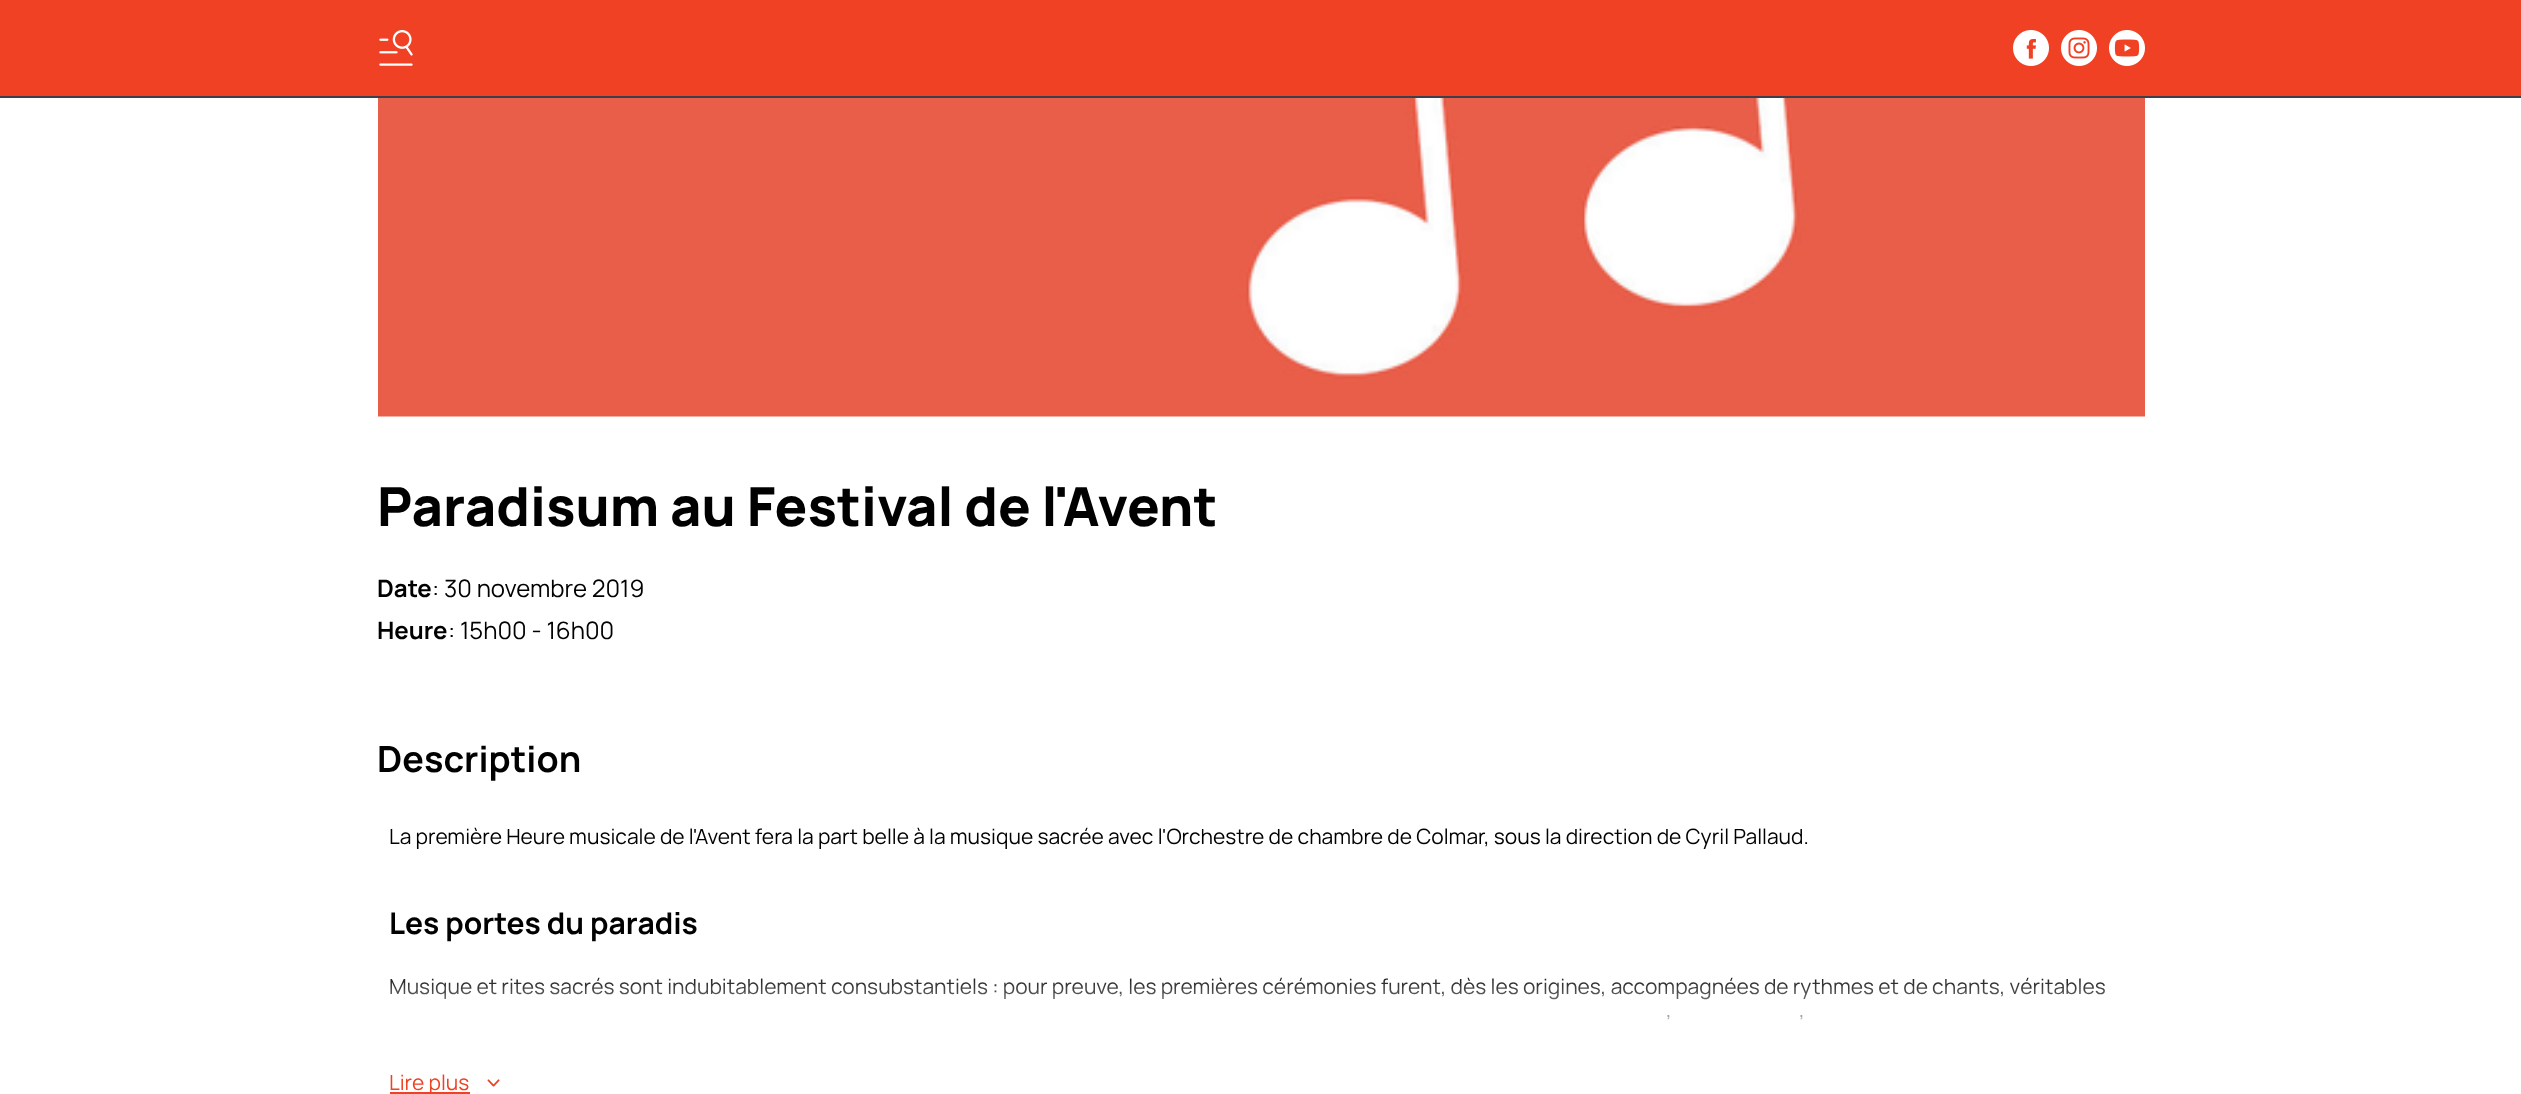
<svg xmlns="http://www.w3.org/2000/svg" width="2521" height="1094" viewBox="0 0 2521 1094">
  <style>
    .t1 { font: 800 54px Manrope; fill: #000; }
    .t2 { font: bold 24px Manrope; fill: #000; }
    .t3 { font: 24px Manrope; fill: #000; }
    .t4 { font: bold 36px Manrope; fill: #000; }
    .t5 { font: 21px Manrope; fill: #000; }
    .t6 { font: bold 30px Manrope; fill: #000; }
    .t7 { font: 21px Manrope; fill: #f04124; }
  </style>
  <defs>
    <linearGradient id="g1" gradientUnits="userSpaceOnUse" x1="1268" y1="1044" x2="1268" y2="969"><stop offset="0" stop-color="#fff"/><stop offset="1" stop-color="#fff" stop-opacity="0"/></linearGradient>
  </defs>
  <rect width="100%" height="100%" fill="#fff"/>
  <rect x="0" y="0" width="2521" height="96" fill="#f04124"/>
  <rect x="0" y="96" width="2521" height="2" fill="#3e3d4a"/>
  <image x="379" y="30" width="34" height="36" href="images/1.png"/>
  <image x="2013" y="30" width="36" height="36" href="images/2.png"/>
  <image x="2061" y="30" width="36" height="36" href="images/3.png"/>
  <image x="2109" y="30" width="36" height="36" href="images/4.png"/>
  <image x="378" y="98" width="1767" height="319" href="images/5.png"/>
  <text x="377" y="526" class="t1">Paradisum au Festival de l'Avent</text>
  <text x="377" y="597" class="t2">Date</text>
  <text x="432" y="597" class="t3">: 30 novembre 2019</text>
  <text x="377" y="639" class="t2">Heure</text>
  <text x="448" y="639" class="t3">: 15h00 - 16h00</text>
  <text x="377" y="772" class="t4">Description</text>
  <text x="389" y="844" class="t5">La première Heure musicale de l'Avent fera la part belle à la musique sacrée avec l'Orchestre de chambre de Colmar, sous la direction de Cyril Pallaud.</text>
  <text x="389" y="934" class="t6">Les portes du paradis</text>
  <text x="389" y="994" class="t5">Musique et rites sacrés sont indubitablement consubstantiels : pour preuve, les premières cérémonies furent, dès les origines, accompagnées de rythmes et de chants, véritables</text>
  <text x="1666" y="1030" class="t5">’</text>
  <text x="1799" y="1030" class="t5">’</text>
  <rect x="390" y="977" width="1716" height="43" fill="url(#g1)"/>
  <rect x="390" y="1092" width="80" height="2" fill="#f04124"/>
  <text x="389" y="1090" class="t7">Lire plus</text>
  <image x="487" y="1079" width="13" height="8" href="images/6.png"/>
</svg>
